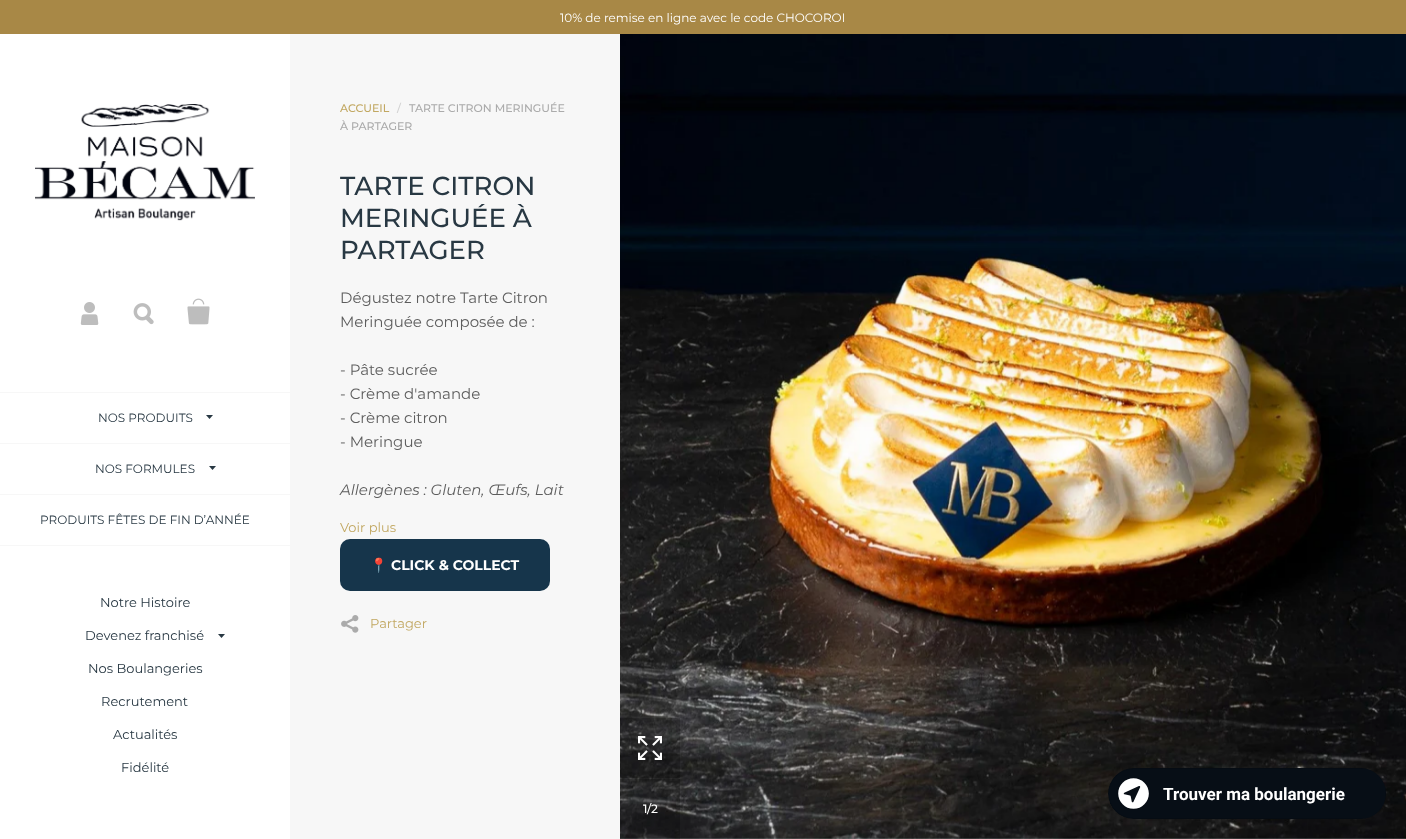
<svg xmlns="http://www.w3.org/2000/svg" width="1406" height="839" viewBox="0 0 1406 839">
  <style>
    .t1 { font: 12px Montserrat; fill: #fff; }
    .t2 { font: 12px Montserrat; fill: #283843; }
    .t3 { font: 13px Montserrat; fill: #283843; }
    .t4 { font: 500 11px Montserrat; fill: #c2a862; }
    .t5 { font: 500 11px Montserrat; fill: #d1d1d1; }
    .t6 { font: 500 11px Montserrat; fill: #ababab; }
    .t7 { font: 500 26px Montserrat; fill: #283843; }
    .t8 { font: 15px Montserrat; fill: #5d5d5d; }
    .t9 { font: italic 15px Montserrat; fill: #5d5d5d; }
    .t10 { font: 13px Montserrat; fill: #c2a862; }
    .t11 { font: bold 14px Noto Color Emoji; fill: #fff; }
    .t12 { font: bold 14px Montserrat; fill: #fff; }
    .t13 { font: 500 12px Montserrat; fill: #fff; }
    .t14 { font: 500 12px Montserrat; letter-spacing: -2px; fill: #fff; }
  </style>
  <rect width="100%" height="100%" fill="#f7f7f7"/>
  <rect x="0" y="0" width="1406" height="34" fill="#a88846"/>
  <text x="560" y="22" class="t1">10% de remise en ligne avec le code CHOCOROI</text>
  <rect x="0" y="34" width="290" height="805" fill="#fff"/>
  <image x="35" y="104" width="220" height="117" href="images/1.png"/>
  <image x="80" y="302" width="19" height="23" href="images/2.png"/>
  <image x="133" y="303" width="21" height="22" href="images/3.png"/>
  <image x="187" y="298" width="23" height="27" href="images/4.png"/>
  <rect x="0" y="392" width="290" height="1" fill="#f7f7f7"/>
  <rect x="0" y="443" width="290" height="1" fill="#f7f7f7"/>
  <text x="98" y="422" class="t2">NOS PRODUITS</text>
  <path d="M213 415L209.5 419L206 415Z" fill="#283843"/>
  <rect x="0" y="494" width="290" height="1" fill="#f7f7f7"/>
  <text x="95" y="473" class="t2">NOS FORMULES</text>
  <path d="M216 466L212.5 470L209 466Z" fill="#283843"/>
  <rect x="0" y="545" width="290" height="1" fill="#f7f7f7"/>
  <text x="40" y="524" class="t2">PRODUITS FÊTES DE FIN D’ANNÉE</text>
  <text x="100" y="607" class="t3">Notre Histoire</text>
  <text x="85" y="640" class="t3">Devenez franchisé</text>
  <path d="M225 634L221.5 638L218 634Z" fill="#283843"/>
  <text x="88" y="673" class="t3">Nos Boulangeries</text>
  <text x="101" y="706" class="t3">Recrutement</text>
  <text x="113" y="739" class="t3">Actualités</text>
  <text x="121" y="772" class="t3">Fidélité</text>
  <text x="340" y="112" class="t4">ACCUEIL</text>
  <text x="397" y="112" class="t5">/</text>
  <text x="409" y="112" class="t6">TARTE CITRON MERINGUÉE</text>
  <text x="340" y="130" class="t6">À PARTAGER</text>
  <text x="340" y="195" class="t7">TARTE CITRON</text>
  <text x="340" y="227" class="t7">MERINGUÉE À</text>
  <text x="340" y="259" class="t7">PARTAGER</text>
  <text x="340" y="303" class="t8">Dégustez notre Tarte Citron</text>
  <text x="340" y="327" class="t8">Meringuée composée de :</text>
  <text x="340" y="375" class="t8">- Pâte sucrée</text>
  <text x="340" y="399" class="t8">- Crème d'amande</text>
  <text x="340" y="423" class="t8">- Crème citron</text>
  <text x="340" y="447" class="t8">- Meringue</text>
  <text x="340" y="495" class="t9">Allergènes : Gluten, Œufs, Lait</text>
  <text x="340" y="532" class="t10">Voir plus</text>
  <rect x="340" y="539" width="210" height="52" rx="10" fill="#16354b"/>
  <text x="370" y="570" class="t11">📍</text>
  <text x="391" y="570" class="t12">CLICK &amp; COLLECT</text>
  <image x="341" y="615" width="18" height="18" href="images/5.png"/>
  <text x="370" y="628" class="t10">Partager</text>
  <image x="620" y="34" width="786" height="805" href="images/7.png"/>
  <rect x="620" y="718" width="60" height="60" fill="#00000033"/>
  <image x="638" y="736" width="24" height="24" href="images/6.png"/>
  <rect x="620" y="779" width="60" height="60" fill="#00000033"/>
  <text x="643" y="813" class="t13">1</text>
  <text x="647" y="813" class="t14">/</text>
  <text x="651" y="813" class="t13">2</text>
  <image x="1108" y="768" width="278" height="51" href="images/8.png"/>
</svg>
